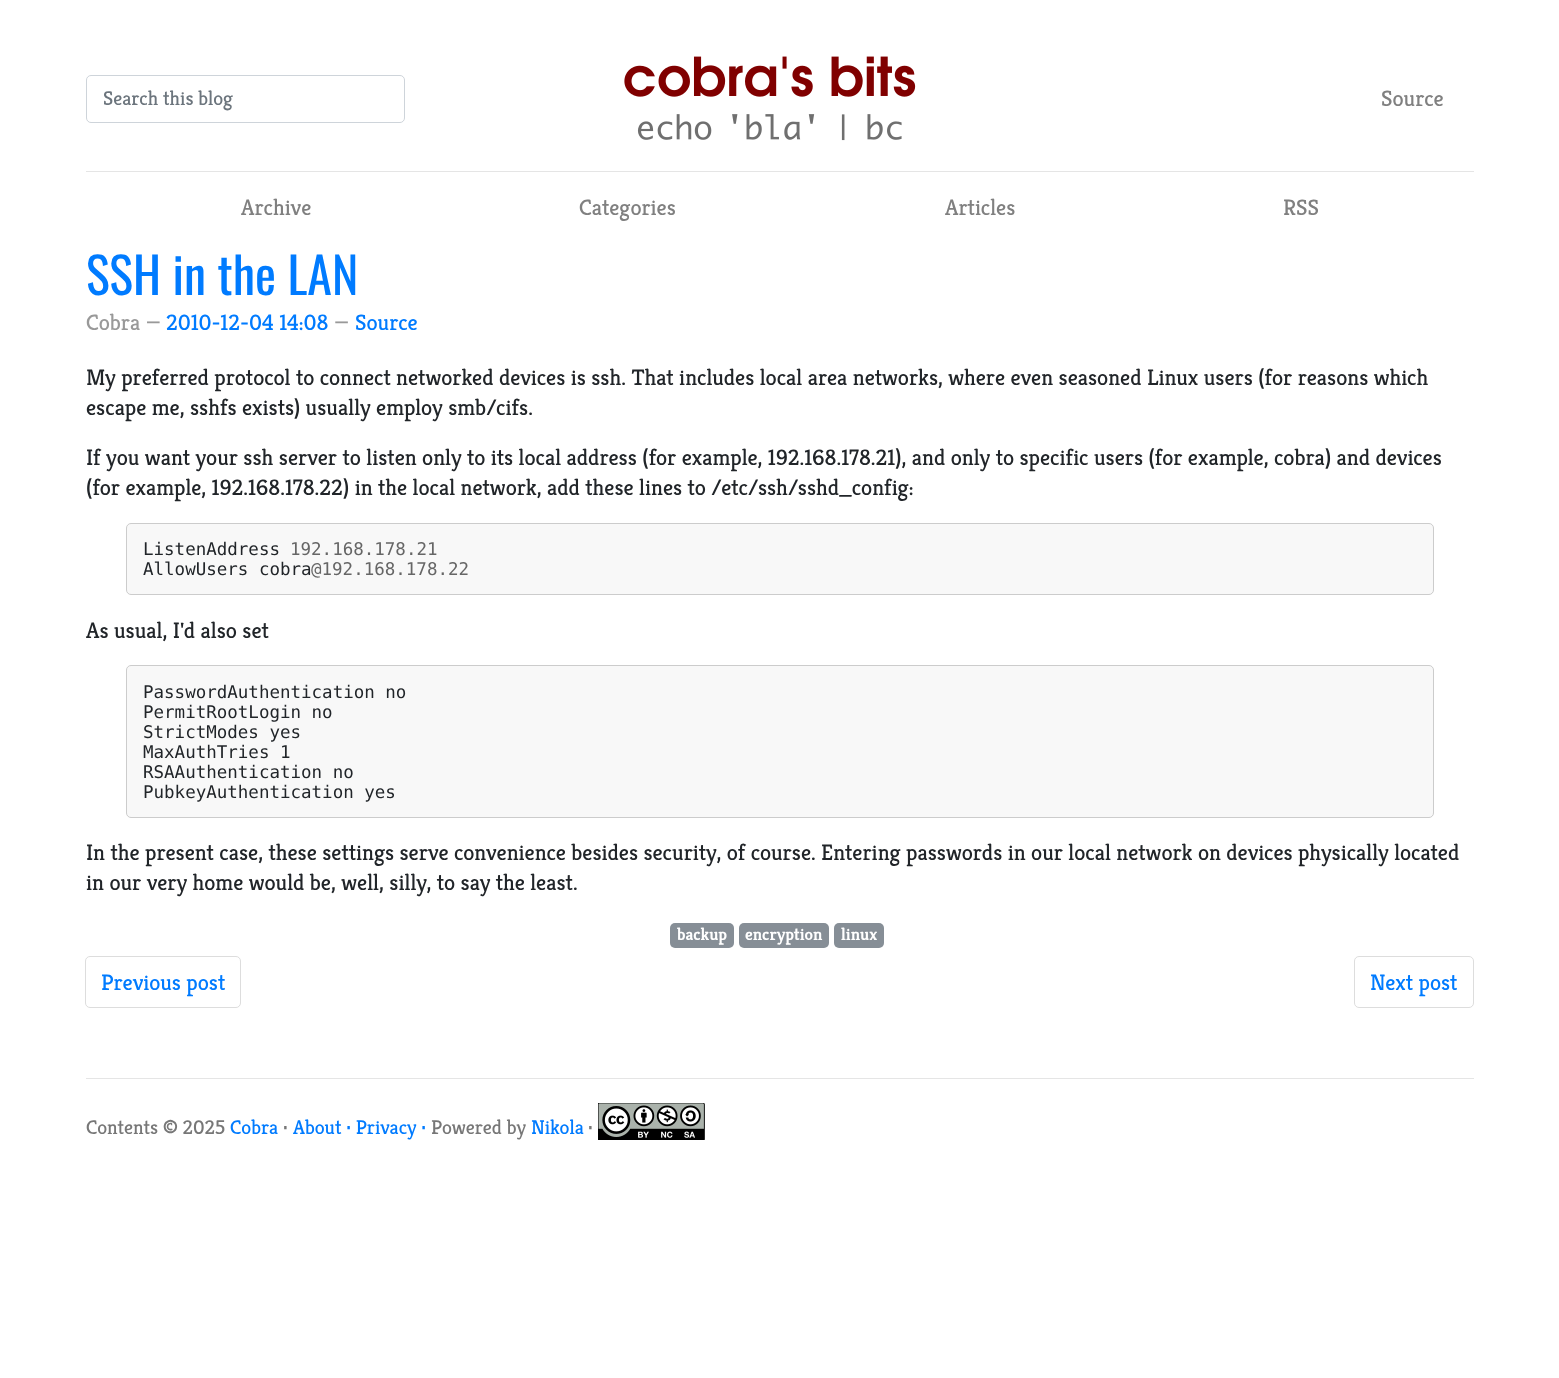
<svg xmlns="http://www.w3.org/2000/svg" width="1559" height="1378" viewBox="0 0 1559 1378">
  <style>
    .t1 { font: 20px Kreon; fill: #6c757d; }
    .t2 { font: 22.5px Kreon; fill: #808080; }
    .t3 { font: 50px Oswald; fill: #007bff; }
    .t4 { font: 22.5px Kreon; fill: #999; }
    .t5 { font: 22.5px Kreon; fill: #007bff; }
    .t6 { font: 22.5px Kreon; fill: #212529; }
    .t7 { font: 17.5px DejaVu Sans Mono; fill: #212529; }
    .t8 { font: 17.5px DejaVu Sans Mono; fill: #666; }
    .t9 { font: bold 17px Kreon; fill: #fff; }
    .t10 { font: 20px Kreon; fill: #777; }
    .t11 { font: 20px Kreon; fill: #007bff; }
  </style>
  <rect width="100%" height="100%" fill="#fff"/>
  <rect x="86" y="171" width="1388" height="1" fill="#e5e5e5"/>
  <rect x="86.5" y="75.5" width="318" height="47" rx="4.5" fill="none" stroke="#ced4da"/>
  <text x="103" y="105" class="t1">Search this blog</text>
  <image x="624" y="56" width="292" height="85" href="images/1.png"/>
  <text x="1381" y="106" class="t2">Source</text>
  <text x="241" y="215" class="t2">Archive</text>
  <text x="579" y="215" class="t2">Categories</text>
  <text x="945" y="215" class="t2">Articles</text>
  <text x="1283" y="215" class="t2">RSS</text>
  <text x="86" y="295" class="t3">SSH in the LAN</text>
  <text x="86" y="330" class="t4">Cobra —</text>
  <text x="166" y="330" class="t5">2010-12-04 14:08</text>
  <text x="334" y="330" class="t4">—</text>
  <text x="355" y="330" class="t5">Source</text>
  <text x="86" y="385" class="t6">My preferred protocol to connect networked devices is ssh. That includes local area networks, where even seasoned Linux users (for reasons which</text>
  <text x="86" y="415" class="t6">escape me, sshfs exists) usually employ smb/cifs.</text>
  <text x="86" y="465" class="t6">If you want your ssh server to listen only to its local address (for example, 192.168.178.21), and only to specific users (for example, cobra) and devices</text>
  <text x="86" y="495" class="t6">(for example, 192.168.178.22) in the local network, add these lines to /etc/ssh/sshd_config:</text>
  <rect x="126.5" y="523.5" width="1307" height="71" rx="4.5" fill="#f8f8f8" stroke="#ccc"/>
  <text x="143" y="555" class="t7">ListenAddress</text>
  <text x="290" y="555" class="t8">192.168.178.21</text>
  <text x="143" y="575" class="t7">AllowUsers cobra</text>
  <text x="311" y="575" class="t8">@192.168.178.22</text>
  <text x="86" y="638" class="t6">As usual, I'd also set</text>
  <rect x="126.5" y="665.5" width="1307" height="152" rx="4.5" fill="#f8f8f8" stroke="#ccc"/>
  <text x="143" y="698" class="t7">PasswordAuthentication no</text>
  <text x="143" y="718" class="t7">PermitRootLogin no</text>
  <text x="143" y="738" class="t7">StrictModes yes</text>
  <text x="143" y="758" class="t7">MaxAuthTries 1</text>
  <text x="143" y="778" class="t7">RSAAuthentication no</text>
  <text x="143" y="798" class="t7">PubkeyAuthentication yes</text>
  <text x="86" y="860" class="t6">In the present case, these settings serve convenience besides security, of course. Entering passwords in our local network on devices physically located</text>
  <text x="86" y="890" class="t6">in our very home would be, well, silly, to say the least.</text>
  <rect x="670" y="923" width="64" height="25" rx="5" fill="#868e96"/>
  <text x="677" y="940" class="t9">backup</text>
  <rect x="739" y="923" width="90" height="25" rx="5" fill="#868e96"/>
  <text x="745" y="940" class="t9">encryption</text>
  <rect x="834" y="923" width="50" height="25" rx="5" fill="#868e96"/>
  <text x="841" y="940" class="t9">linux</text>
  <rect x="85.5" y="956.5" width="155" height="51" rx="4.5" fill="none" stroke="#ddd"/>
  <text x="101" y="990" class="t5">Previous post</text>
  <rect x="1354.5" y="956.5" width="119" height="51" rx="4.5" fill="none" stroke="#ddd"/>
  <text x="1370" y="990" class="t5">Next post</text>
  <rect x="86" y="1078" width="1388" height="1" fill="#e5e5e5"/>
  <text x="86" y="1134" class="t10">Contents © 2025</text>
  <text x="230" y="1134" class="t11">Cobra</text>
  <text x="283" y="1134" class="t10">·</text>
  <text x="293" y="1134" class="t11">About · Privacy ·</text>
  <text x="431" y="1134" class="t10">Powered by</text>
  <text x="531" y="1134" class="t11">Nikola</text>
  <text x="588" y="1134" class="t10">·</text>
  <image x="598" y="1103" width="107" height="37" href="images/2.png"/>
</svg>
